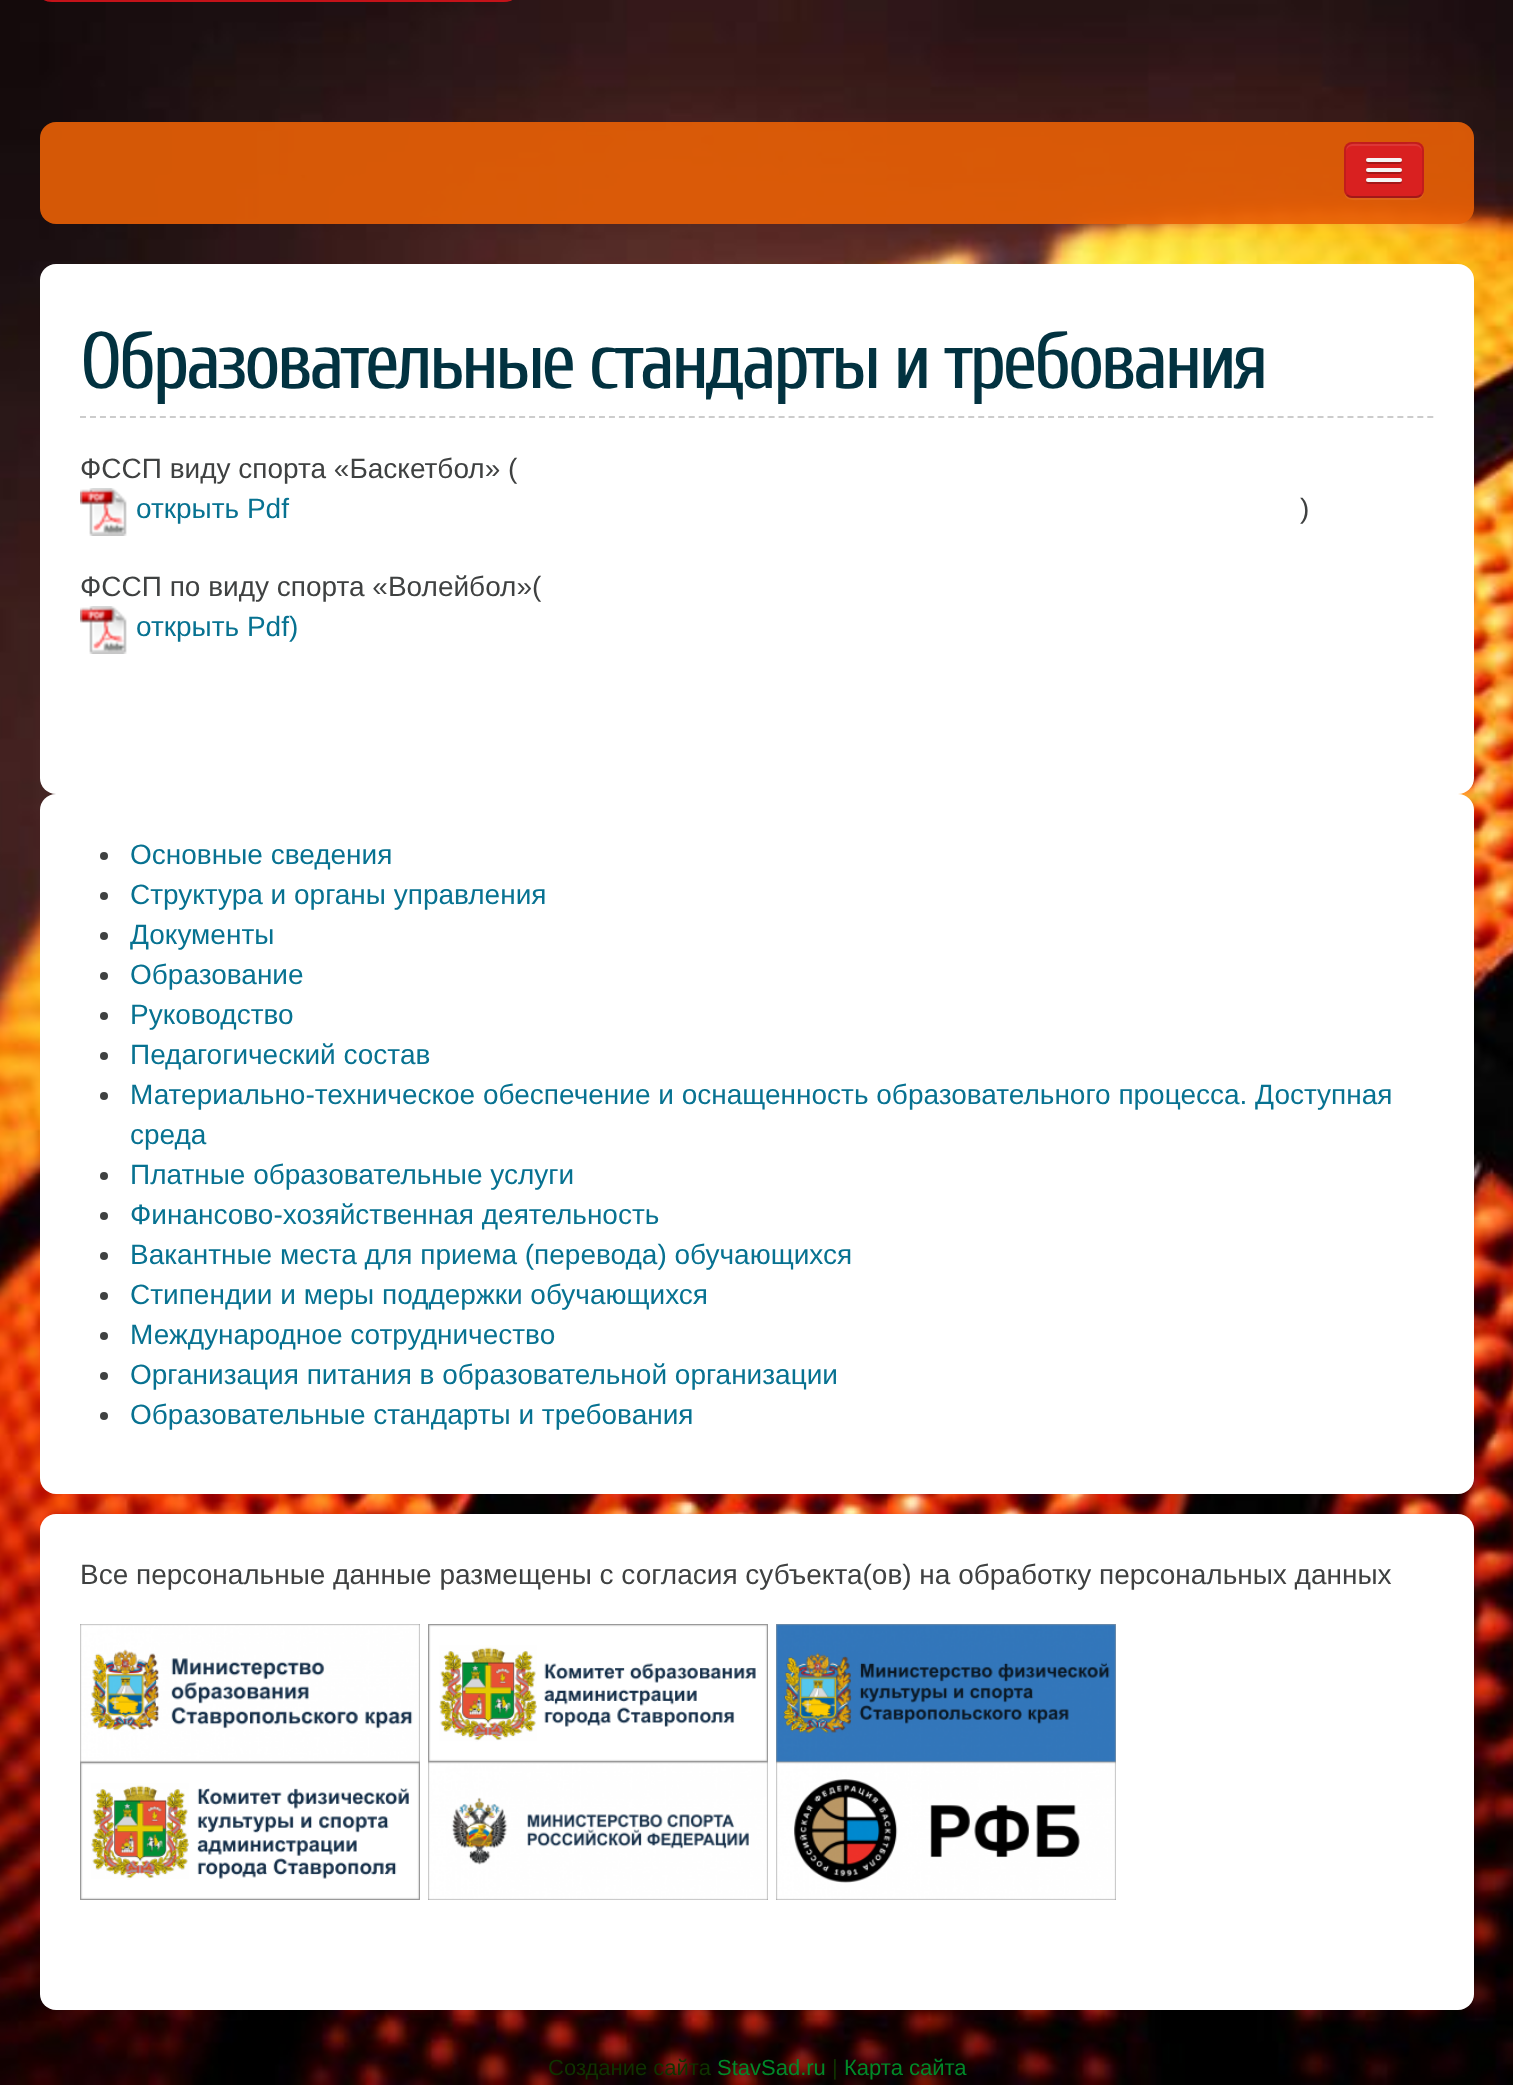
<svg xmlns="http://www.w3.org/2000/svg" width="1513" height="2085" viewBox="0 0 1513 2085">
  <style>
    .t1 { font: 80px Cuprum; letter-spacing: -4px; fill: #023240; }
    .t2 { font: 28px Liberation Sans; fill: #3f4141; }
    .t3 { font: 28px Liberation Sans; fill: #077291; }
    .t4 { font: 22px Liberation Sans; fill: #0f3300; }
    .t5 { font: 22px Liberation Sans; fill: #008929; }
  </style>
  <rect width="100%" height="100%" fill="#fff"/>
  <image x="0" y="0" width="1513" height="2085" href="images/1.png"/>
  <rect x="40" y="-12" width="476" height="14" rx="12" fill="#db151c"/>
  <path d="M40-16V-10C40-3 45 2 52 2H504C511 2 516-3 516-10V-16C516-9 511-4 504-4H52C45-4 40-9 40-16Z" fill="#0000001a"/>
  <rect x="40" y="122" width="1434" height="102" rx="16" fill="#e86006e8"/>
  <path d="M1344 190C1344 202 1353 200 1363 200H1405C1415 200 1424 202 1424 190C1424 194 1420 198 1416 198H1352C1348 198 1344 194 1344 190Z" fill="#ffffff12"/>
  <rect x="1344" y="142" width="80" height="56" rx="8" fill="#d92020"/>
  <path d="M1352 146H1416C1419 146 1422 149 1422 152C1422 142 1414 144 1405 144H1363C1354 144 1346 142 1346 152C1346 149 1349 146 1352 146Z" fill="#dd3636"/>
  <path d="M1421 195C1419.5 196.5 1418 197 1416 197H1352C1350 197 1348.5 196.5 1347 195" fill="none" stroke="#00000040" stroke-width="2"/>
  <path d="M1347 195C1345.5 193.5 1345 192 1345 190V150C1345 148 1345.5 146.5 1347 145C1348.5 143.5 1350 143 1352 143H1416C1418 143 1419.5 143.5 1421 145C1422.5 146.5 1423 148 1423 150V190C1423 192 1422.5 193.5 1421 195" fill="none" stroke="#0000001a" stroke-width="2"/>
  <path d="M1366.5 161C1364 165 1373 164 1373.5 164H1394.5C1395 164 1404 165 1401.5 161C1401.5 161.5 1400.5 162 1400 162H1368C1367.5 162 1366.5 161.5 1366.5 161Z" fill="#a31818"/>
  <rect x="1366" y="158" width="36" height="4" rx="2" fill="#f5f5f5"/>
  <path d="M1366.5 171C1364 175 1373 174 1373.5 174H1394.5C1395 174 1404 175 1401.5 171C1401.5 171.5 1400.5 172 1400 172H1368C1367.5 172 1366.5 171.5 1366.5 171Z" fill="#a31818"/>
  <rect x="1366" y="168" width="36" height="4" rx="2" fill="#f5f5f5"/>
  <path d="M1366.5 181C1364 185 1373 184 1373.5 184H1394.5C1395 184 1404 185 1401.5 181C1401.5 181.5 1400.5 182 1400 182H1368C1367.5 182 1366.5 181.5 1366.5 181Z" fill="#a31818"/>
  <rect x="1366" y="178" width="36" height="4" rx="2" fill="#f5f5f5"/>
  <rect x="40" y="264" width="1434" height="530" rx="16" fill="#fff"/>
  <path d="M80 417H1434" fill="none" stroke="#ccc" stroke-width="2" stroke-dasharray="6 3.98"/>
  <text x="80" y="388" class="t1">Образовательные стандарты и требования</text>
  <text x="80" y="478" class="t2">ФССП виду спорта «Баскетбол» (</text>
  <image x="80" y="488" width="47" height="48" href="images/2.png"/>
  <text x="136" y="518" class="t3">открыть Pdf</text>
  <text x="1300" y="518" class="t2">)</text>
  <text x="80" y="596" class="t2">ФССП по виду спорта «Волейбол»(</text>
  <image x="80" y="606" width="47" height="48" href="images/2.png"/>
  <text x="136" y="636" class="t3">открыть Pdf)</text>
  <rect x="40" y="794" width="1434" height="700" rx="16" fill="#fff"/>
  <circle cx="104" cy="856" r="4" fill="#3f4141"/>
  <text x="130" y="864" class="t3">Основные сведения</text>
  <circle cx="104" cy="896" r="4" fill="#3f4141"/>
  <text x="130" y="904" class="t3">Структура и органы управления</text>
  <circle cx="104" cy="936" r="4" fill="#3f4141"/>
  <text x="130" y="944" class="t3">Документы</text>
  <circle cx="104" cy="976" r="4" fill="#3f4141"/>
  <text x="130" y="984" class="t3">Образование</text>
  <circle cx="104" cy="1016" r="4" fill="#3f4141"/>
  <text x="130" y="1024" class="t3">Руководство</text>
  <circle cx="104" cy="1056" r="4" fill="#3f4141"/>
  <text x="130" y="1064" class="t3">Педагогический состав</text>
  <circle cx="104" cy="1096" r="4" fill="#3f4141"/>
  <text x="130" y="1104" class="t3">Материально-техническое обеспечение и оснащенность образовательного процесса. Доступная</text>
  <text x="130" y="1144" class="t3">среда</text>
  <circle cx="104" cy="1176" r="4" fill="#3f4141"/>
  <text x="130" y="1184" class="t3">Платные образовательные услуги</text>
  <circle cx="104" cy="1216" r="4" fill="#3f4141"/>
  <text x="130" y="1224" class="t3">Финансово-хозяйственная деятельность</text>
  <circle cx="104" cy="1256" r="4" fill="#3f4141"/>
  <text x="130" y="1264" class="t3">Вакантные места для приема (перевода) обучающихся</text>
  <circle cx="104" cy="1296" r="4" fill="#3f4141"/>
  <text x="130" y="1304" class="t3">Стипендии и меры поддержки обучающихся</text>
  <circle cx="104" cy="1336" r="4" fill="#3f4141"/>
  <text x="130" y="1344" class="t3">Международное сотрудничество</text>
  <circle cx="104" cy="1376" r="4" fill="#3f4141"/>
  <text x="130" y="1384" class="t3">Организация питания в образовательной организации</text>
  <circle cx="104" cy="1416" r="4" fill="#3f4141"/>
  <text x="130" y="1424" class="t3">Образовательные стандарты и требования</text>
  <rect x="40" y="1514" width="1434" height="496" rx="16" fill="#fff"/>
  <text x="80" y="1584" class="t2">Все персональные данные размещены с согласия субъекта(ов) на обработку персональных данных</text>
  <image x="80" y="1624" width="340" height="138" href="images/3.png"/>
  <image x="428" y="1624" width="340" height="138" href="images/4.png"/>
  <image x="776" y="1624" width="340" height="138" href="images/5.png"/>
  <image x="80" y="1762" width="340" height="138" href="images/6.png"/>
  <image x="428" y="1762" width="340" height="138" href="images/7.png"/>
  <image x="776" y="1762" width="340" height="138" href="images/8.png"/>
  <text x="548" y="2075" class="t4">Создание сайта</text>
  <text x="717" y="2075" class="t5">StavSad.ru</text>
  <text x="832" y="2075" class="t4">|</text>
  <text x="844" y="2075" class="t5">Карта сайта</text>
</svg>
